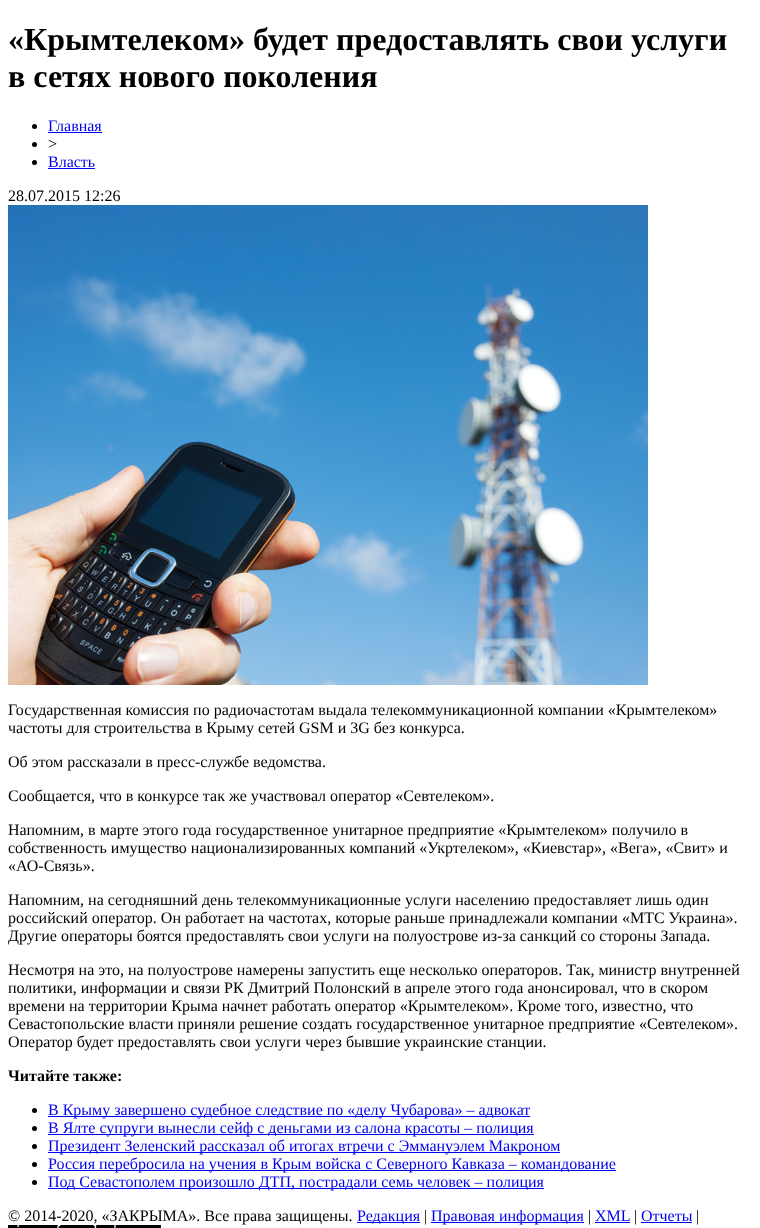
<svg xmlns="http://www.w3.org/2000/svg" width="760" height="1228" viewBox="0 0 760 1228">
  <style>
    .t1 { font: bold 32px Liberation Serif; fill: #000; }
    .t2 { font: 16px Liberation Serif; fill: #00e; }
    .t3 { font: 16px Liberation Serif; fill: #000; }
    .t4 { font: bold 16px Liberation Serif; fill: #000; }
  </style>
  <rect width="100%" height="100%" fill="#fff"/>
  <text x="8" y="50" class="t1">«Крымтелеком» будет предоставлять свои услуги</text>
  <text x="8" y="87" class="t1">в сетях нового поколения</text>
  <circle cx="34.5" cy="126.5" r="2.5" fill="#000"/>
  <text x="48" y="131" class="t2">Главная</text>
  <rect x="48" y="132" width="54" height="1" fill="#00e"/>
  <circle cx="34.5" cy="144.5" r="2.5" fill="#000"/>
  <text x="48" y="149" class="t3">&gt;</text>
  <circle cx="34.5" cy="162.5" r="2.5" fill="#000"/>
  <text x="48" y="167" class="t2">Власть</text>
  <rect x="48" y="168" width="47" height="1" fill="#00e"/>
  <text x="8" y="201" class="t3">28.07.2015 12:26</text>
  <image x="8" y="205" width="640" height="480" href="images/1.png"/>
  <text x="8" y="715" class="t3">Государственная комиссия по радиочастотам выдала телекоммуникационной компании «Крымтелеком»</text>
  <text x="8" y="733" class="t3">частоты для строительства в Крыму сетей GSM и 3G без конкурса.</text>
  <text x="8" y="767" class="t3">Об этом рассказали в пресс-службе ведомства.</text>
  <text x="8" y="801" class="t3">Сообщается, что в конкурсе так же участвовал оператор «Севтелеком».</text>
  <text x="8" y="835" class="t3">Напомним, в марте этого года государственное унитарное предприятие «Крымтелеком» получило в</text>
  <text x="8" y="853" class="t3">собственность имущество национализированных компаний «Укртелеком», «Киевстар», «Вега», «Свит» и</text>
  <text x="8" y="871" class="t3">«АО-Связь».</text>
  <text x="8" y="905" class="t3">Напомним, на сегодняшний день телекоммуникационные услуги населению предоставляет лишь один</text>
  <text x="8" y="923" class="t3">российский оператор. Он работает на частотах, которые раньше принадлежали компании «МТС Украина».</text>
  <text x="8" y="941" class="t3">Другие операторы боятся предоставлять свои услуги на полуострове из-за санкций со стороны Запада.</text>
  <text x="8" y="975" class="t3">Несмотря на это, на полуострове намерены запустить еще несколько операторов. Так, министр внутренней</text>
  <text x="8" y="993" class="t3">политики, информации и связи РК Дмитрий Полонский в апреле этого года анонсировал, что в скором</text>
  <text x="8" y="1011" class="t3">времени на территории Крыма начнет работать оператор «Крымтелеком». Кроме того, известно, что</text>
  <text x="8" y="1029" class="t3">Севастопольские власти приняли решение создать государственное унитарное предприятие «Севтелеком».</text>
  <text x="8" y="1047" class="t3">Оператор будет предоставлять свои услуги через бывшие украинские станции.</text>
  <text x="8" y="1081" class="t4">Читайте также:</text>
  <circle cx="34.5" cy="1110.5" r="2.5" fill="#000"/>
  <rect x="48" y="1116" width="482" height="1" fill="#00e"/>
  <text x="48" y="1115" class="t2">В Крыму завершено судебное следствие по «делу Чубарова» – адвокат</text>
  <circle cx="34.5" cy="1128.5" r="2.5" fill="#000"/>
  <rect x="48" y="1134" width="486" height="1" fill="#00e"/>
  <text x="48" y="1133" class="t2">В Ялте супруги вынесли сейф с деньгами из салона красоты – полиция</text>
  <circle cx="34.5" cy="1146.5" r="2.5" fill="#000"/>
  <rect x="48" y="1152" width="512" height="1" fill="#00e"/>
  <text x="48" y="1151" class="t2">Президент Зеленский рассказал об итогах втречи с Эммануэлем Макроном</text>
  <circle cx="34.5" cy="1164.5" r="2.5" fill="#000"/>
  <rect x="48" y="1170" width="568" height="1" fill="#00e"/>
  <text x="48" y="1169" class="t2">Россия перебросила на учения в Крым войска с Северного Кавказа – командование</text>
  <circle cx="34.5" cy="1182.5" r="2.5" fill="#000"/>
  <rect x="48" y="1188" width="496" height="1" fill="#00e"/>
  <text x="48" y="1187" class="t2">Под Севастополем произошло ДТП, пострадали семь человек – полиция</text>
  <text x="8" y="1221" class="t3">© 2014-2020, «ЗАКРЫМА». Все права защищены.</text>
  <rect x="357" y="1222" width="63" height="1" fill="#00e"/>
  <text x="357" y="1221" class="t2">Редакция</text>
  <text x="424" y="1221" class="t3">|</text>
  <rect x="431" y="1222" width="153" height="1" fill="#00e"/>
  <text x="431" y="1221" class="t2">Правовая информация</text>
  <text x="588" y="1221" class="t3">|</text>
  <text x="595" y="1221" class="t2">XML</text>
  <rect x="595" y="1222" width="35" height="1" fill="#00e"/>
  <text x="634" y="1221" class="t3">|</text>
  <text x="641" y="1221" class="t2">Отчеты</text>
  <rect x="641" y="1222" width="51" height="1" fill="#00e"/>
  <text x="696" y="1221" class="t3">|</text>
  <image x="8" y="1225" width="153" height="3" href="images/2.png"/>
</svg>
